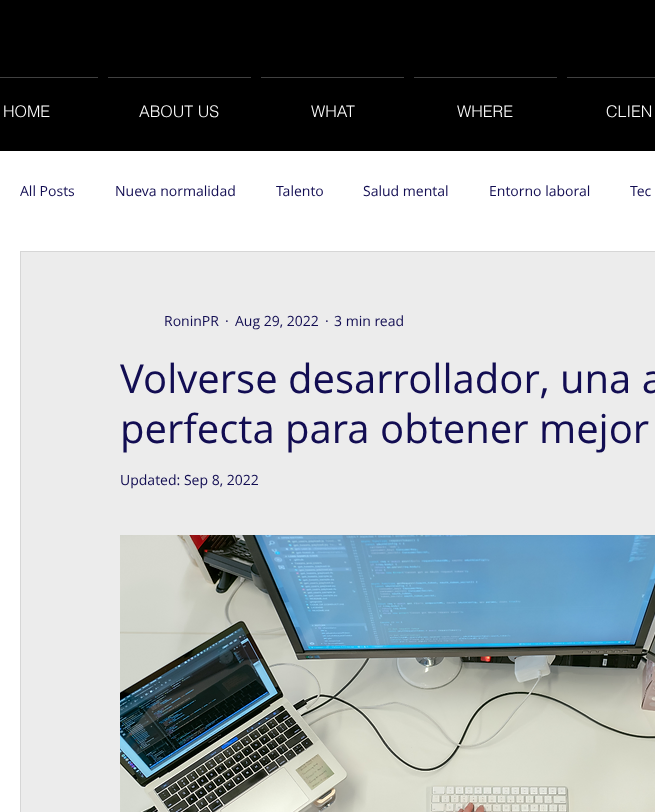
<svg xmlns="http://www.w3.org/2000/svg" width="655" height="812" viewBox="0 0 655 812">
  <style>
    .t1 { font: 300 16px helvetica; fill: #fff; }
    .t2 { font: 14px Open Sans; fill: #120d52; }
    .t3 { font: 40px Open Sans; fill: #120d52; }
  </style>
  <rect width="100%" height="100%" fill="#fff"/>
  <rect x="0" y="0" width="655" height="151" fill="#000"/>
  <rect x="0" y="77" width="98" height="1" fill="#404040"/>
  <text x="3" y="117" class="t1">HOME</text>
  <rect x="108" y="77" width="143" height="1" fill="#404040"/>
  <text x="139" y="117" class="t1">ABOUT US</text>
  <rect x="261" y="77" width="143" height="1" fill="#404040"/>
  <text x="311" y="117" class="t1">WHAT</text>
  <rect x="414" y="77" width="143" height="1" fill="#404040"/>
  <text x="457" y="117" class="t1">WHERE</text>
  <rect x="567" y="77" width="88" height="1" fill="#404040"/>
  <text x="606" y="117" class="t1">CLIEN</text>
  <text x="20" y="196" class="t2">All Posts</text>
  <text x="115" y="196" class="t2">Nueva normalidad</text>
  <text x="276" y="196" class="t2">Talento</text>
  <text x="363" y="196" class="t2">Salud mental</text>
  <text x="489" y="196" class="t2">Entorno laboral</text>
  <text x="630" y="196" class="t2">Tec</text>
  <rect x="20.5" y="251.5" width="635" height="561" fill="#ececec" stroke="#d6d6d6"/>
  <text x="164" y="326" class="t2">RoninPR</text>
  <text x="225" y="326" class="t2">·</text>
  <text x="235" y="326" class="t2">Aug 29, 2022</text>
  <text x="325" y="326" class="t2">·</text>
  <text x="334" y="326" class="t2">3 min read</text>
  <text x="120" y="393" class="t3">Volverse desarrollador, una a</text>
  <text x="120" y="443" class="t3">perfecta para obtener mejor</text>
  <text x="120" y="485" class="t2">Updated: Sep 8, 2022</text>
  <image x="120" y="535" width="535" height="277" href="images/1.png"/>
</svg>
